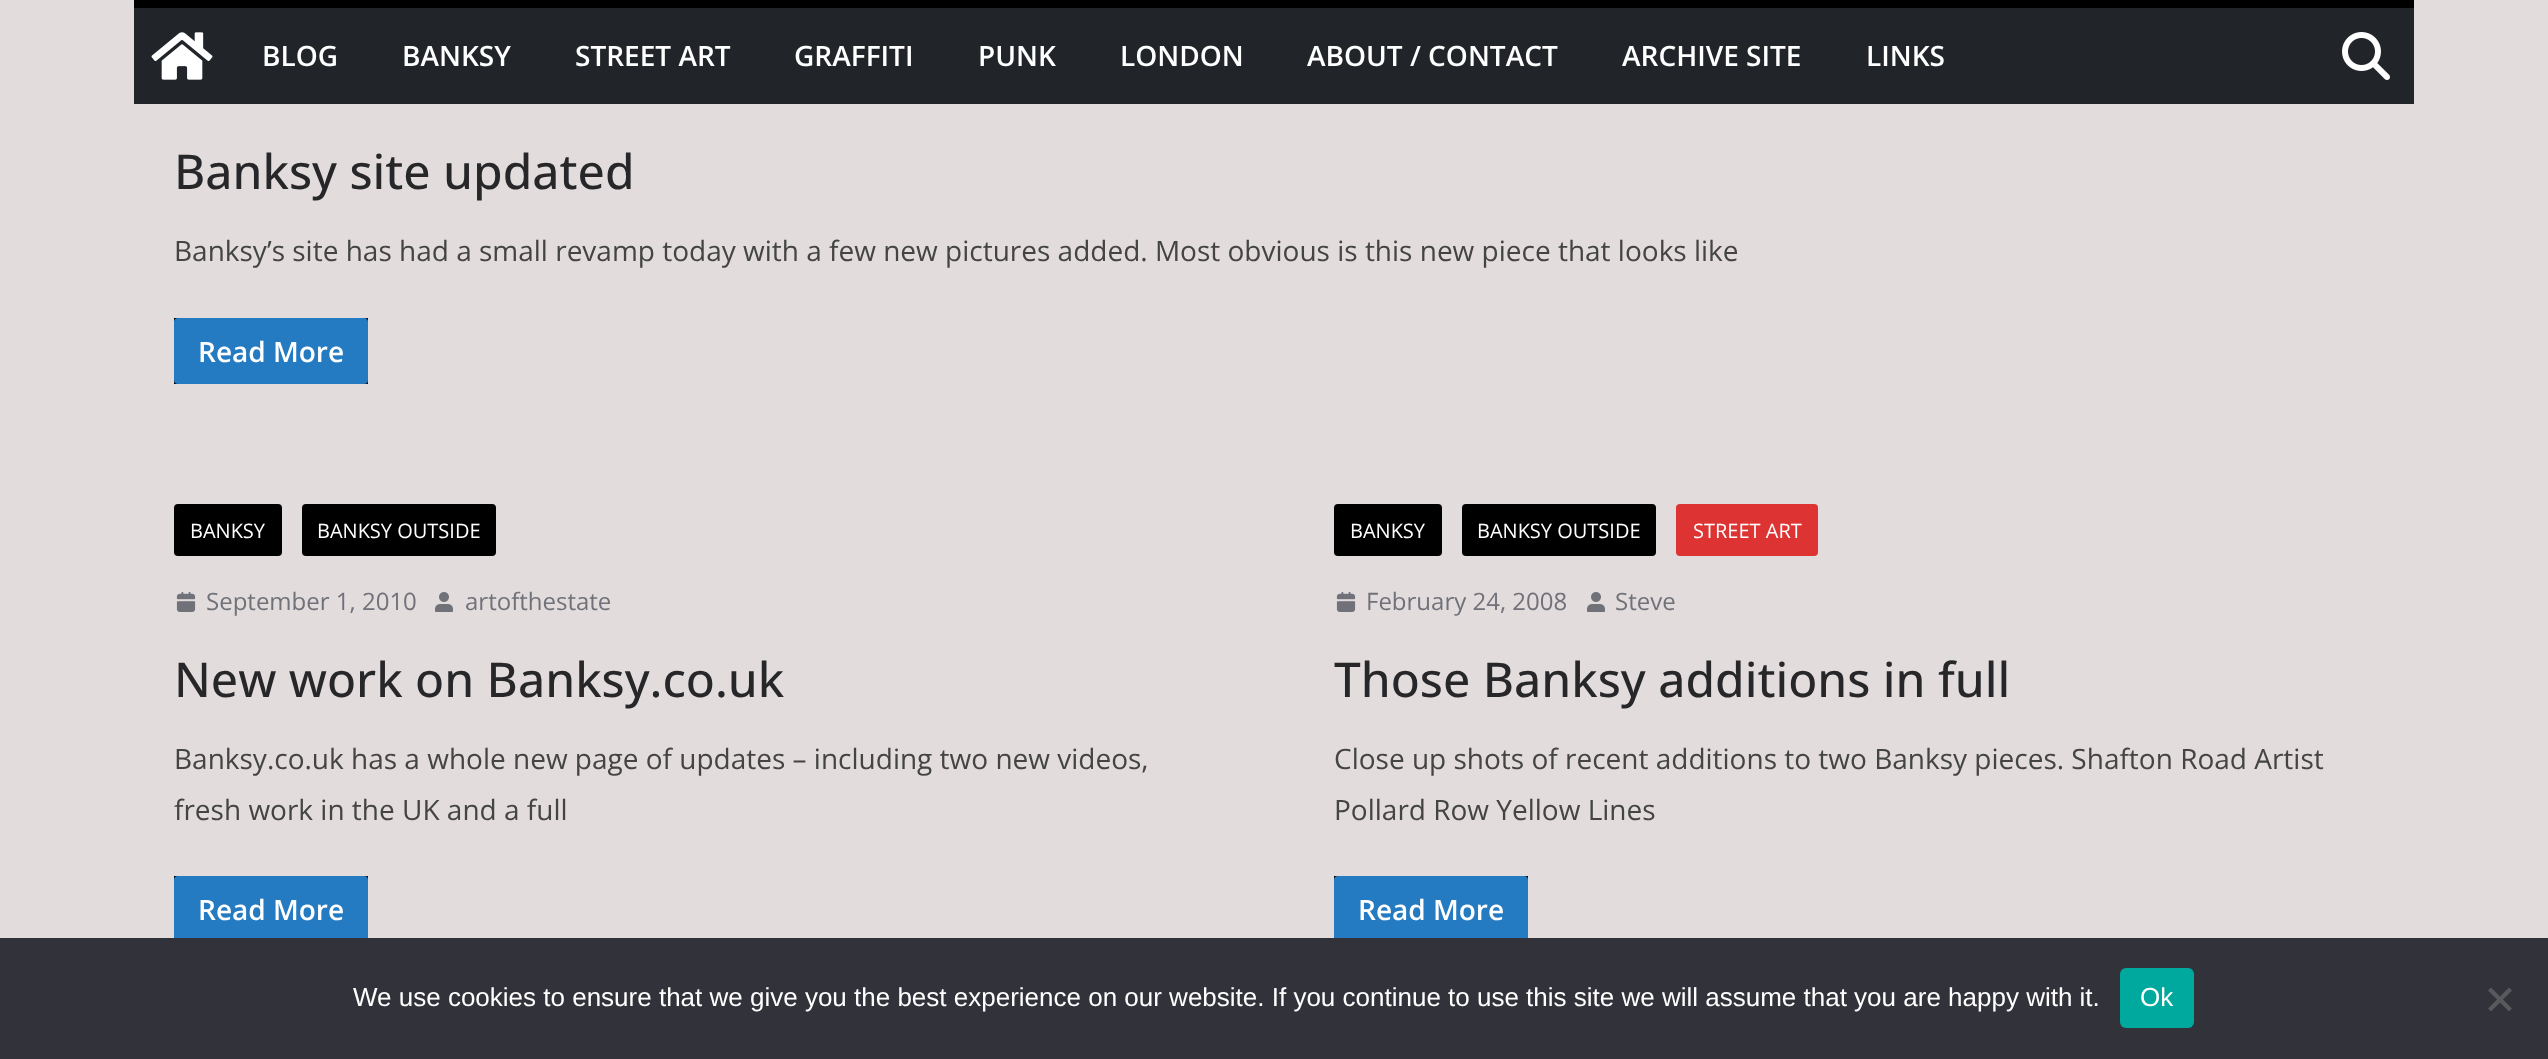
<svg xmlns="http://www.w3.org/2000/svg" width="2548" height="1059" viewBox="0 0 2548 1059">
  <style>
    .t1 { font: 600 28px Open Sans; fill: #fff; }
    .t2 { font: 500 48px Open Sans; fill: #27272a; }
    .t3 { font: 28px Open Sans; fill: #444; }
    .t4 { font: 20px Open Sans; fill: #fff; }
    .t5 { font: 24px Open Sans; fill: #71717a; }
    .t6 { font: 26px Liberation Sans; fill: #fff; }
  </style>
  <rect width="100%" height="100%" fill="#e2dcdc"/>
  <rect x="134" y="8" width="2280" height="96" fill="#212529"/>
  <rect x="134" y="0" width="2280" height="8" fill="#000"/>
  <image x="151" y="32" width="62" height="48" href="images/1.png"/>
  <text x="262" y="66" class="t1">BLOG</text>
  <text x="402" y="66" class="t1">BANKSY</text>
  <text x="575" y="66" class="t1">STREET ART</text>
  <text x="794" y="66" class="t1">GRAFFITI</text>
  <text x="978" y="66" class="t1">PUNK</text>
  <text x="1120" y="66" class="t1">LONDON</text>
  <text x="1307" y="66" class="t1">ABOUT / CONTACT</text>
  <text x="1622" y="66" class="t1">ARCHIVE SITE</text>
  <text x="1866" y="66" class="t1">LINKS</text>
  <image x="2342" y="32" width="48" height="48" href="images/2.png"/>
  <text x="174" y="189" class="t2">Banksy site updated</text>
  <text x="174" y="261" class="t3">Banksy’s site has had a small revamp today with a few new pictures added. Most obvious is this new piece that looks like</text>
  <rect x="174" y="318" width="194" height="66" fill="#000"/>
  <rect x="174" y="318" width="194" height="66" rx="4" fill="#257bc1"/>
  <text x="198" y="362" class="t1">Read More</text>
  <rect x="174" y="504" width="108" height="52" rx="4" fill="#000"/>
  <text x="190" y="538" class="t4">BANKSY</text>
  <rect x="302" y="504" width="194" height="52" rx="4" fill="#000"/>
  <text x="317" y="538" class="t4">BANKSY OUTSIDE</text>
  <image x="176" y="592" width="20" height="20" href="images/3.png"/>
  <text x="206" y="610" class="t5">September 1, 2010</text>
  <image x="435" y="592" width="18" height="20" href="images/4.png"/>
  <text x="465" y="610" class="t5">artofthestate</text>
  <text x="174" y="697" class="t2">New work on Banksy.co.uk</text>
  <text x="174" y="769" class="t3">Banksy.co.uk has a whole new page of updates – including two new videos,</text>
  <text x="174" y="820" class="t3">fresh work in the UK and a full</text>
  <rect x="174" y="876" width="194" height="4" fill="#000"/>
  <rect x="174" y="876" width="194" height="66" rx="4" fill="#257bc1"/>
  <text x="198" y="920" class="t1">Read More</text>
  <rect x="1334" y="504" width="108" height="52" rx="4" fill="#000"/>
  <text x="1350" y="538" class="t4">BANKSY</text>
  <rect x="1462" y="504" width="194" height="52" rx="4" fill="#000"/>
  <text x="1477" y="538" class="t4">BANKSY OUTSIDE</text>
  <rect x="1676" y="504" width="142" height="52" rx="4" fill="#d33"/>
  <text x="1693" y="538" class="t4">STREET ART</text>
  <image x="1336" y="592" width="20" height="20" href="images/3.png"/>
  <text x="1366" y="610" class="t5">February 24, 2008</text>
  <image x="1587" y="592" width="18" height="20" href="images/4.png"/>
  <text x="1615" y="610" class="t5">Steve</text>
  <text x="1334" y="697" class="t2">Those Banksy additions in full</text>
  <text x="1334" y="769" class="t3">Close up shots of recent additions to two Banksy pieces. Shafton Road Artist</text>
  <text x="1334" y="820" class="t3">Pollard Row Yellow Lines</text>
  <rect x="1334" y="876" width="194" height="4" fill="#000"/>
  <rect x="1334" y="876" width="194" height="66" rx="4" fill="#257bc1"/>
  <text x="1358" y="920" class="t1">Read More</text>
  <rect x="0" y="938" width="2548" height="121" fill="#32323a"/>
  <text x="353" y="1006" class="t6">We use cookies to ensure that we give you the best experience on our website. If you continue to use this site we will assume that you are happy with it.</text>
  <rect x="2120" y="968" width="74" height="60" rx="6" fill="#00a99d"/>
  <text x="2140" y="1006" class="t6">Ok</text>
  <path d="M2509 987.5L2512 990.5L2491 1011.5L2488 1008.5Z" fill="#59595d"/>
  <path d="M2488 990.5L2491 987.5L2512 1008.5L2509 1011.5Z" fill="#59595d"/>
</svg>
